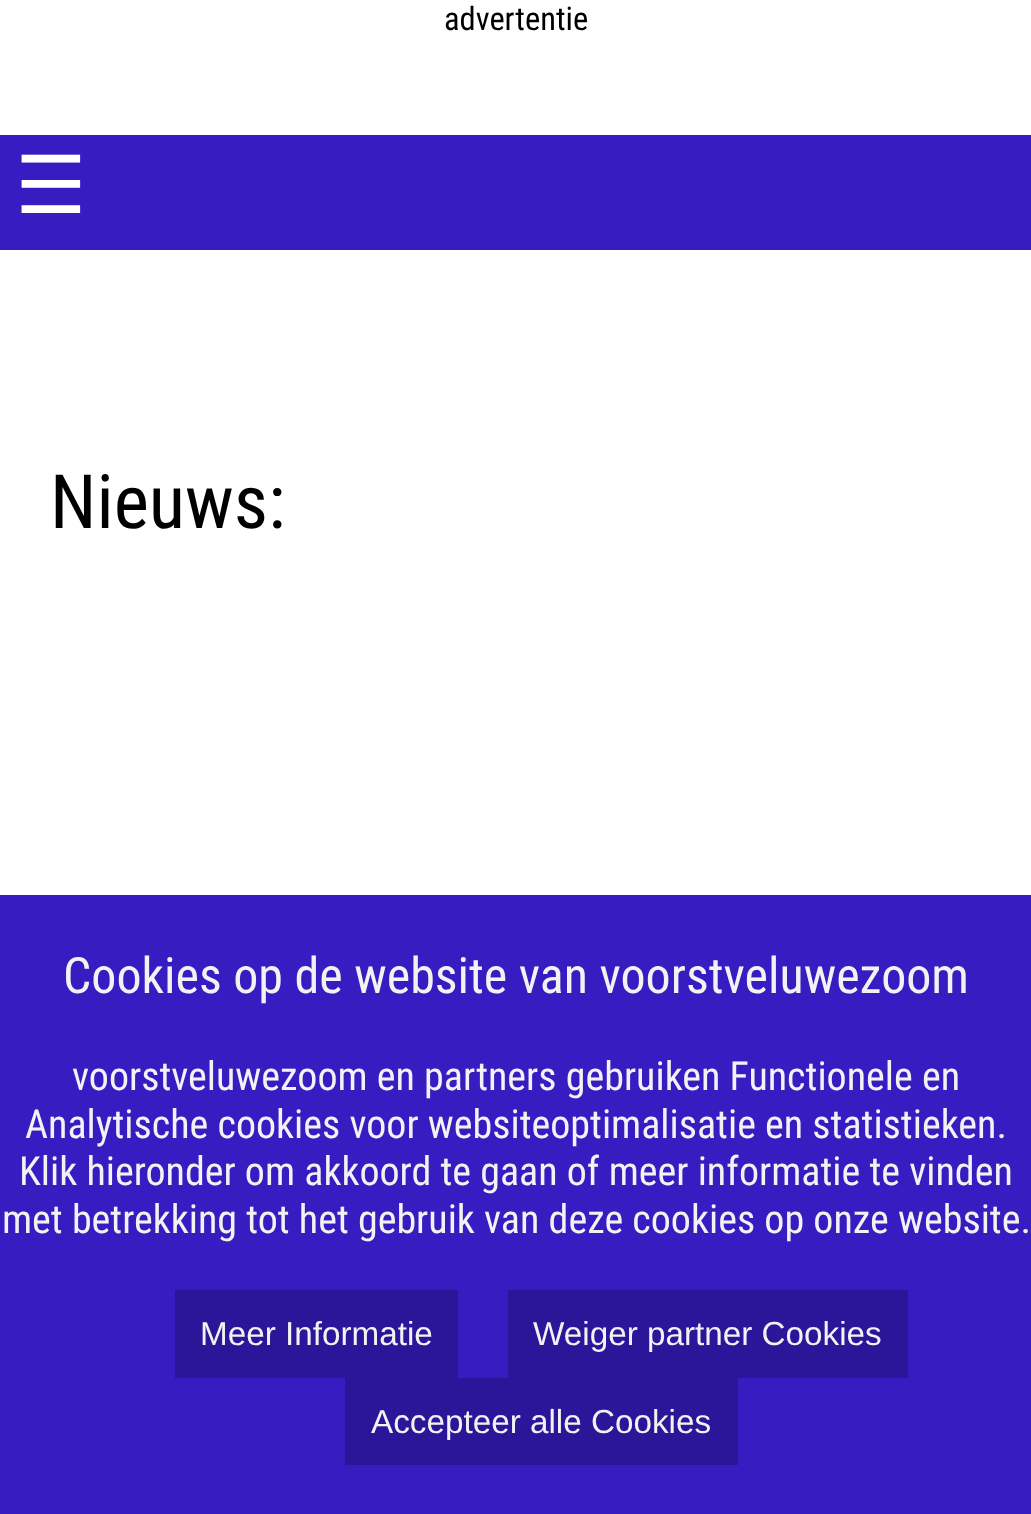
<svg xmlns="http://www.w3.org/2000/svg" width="1031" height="1514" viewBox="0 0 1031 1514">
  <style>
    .t1 { font: 32.5px Roboto Condensed; fill: #000; }
    .t2 { font: 80px DejaVu Sans; fill: #fff; }
    .t3 { font: 75px Roboto Condensed; fill: #000; }
    .t4 { font: 50px Roboto Condensed; fill: #f2f2f2; }
    .t5 { font: 40px Roboto Condensed; fill: #f2f2f2; }
    .t6 { font: 33.25px Liberation Sans; fill: #f2f2f2; }
  </style>
  <rect width="100%" height="100%" fill="#fff"/>
  <text x="444" y="30" class="t1">advertentie</text>
  <rect x="0" y="135" width="1031" height="115" fill="#361cc1"/>
  <text x="15" y="213" class="t2">☰</text>
  <text x="50" y="528" class="t3">Nieuws:</text>
  <rect x="0" y="895" width="1031" height="619" fill="#361cc1"/>
  <text x="63" y="993" class="t4">Cookies op de website van voorstveluwezoom</text>
  <text x="72" y="1090" class="t5">voorstveluwezoom en partners gebruiken Functionele en</text>
  <text x="25" y="1138" class="t5">Analytische cookies voor websiteoptimalisatie en statistieken.</text>
  <text x="19" y="1185" class="t5">Klik hieronder om akkoord te gaan of meer informatie te vinden</text>
  <text x="2" y="1233" class="t5">met betrekking tot het gebruik van deze cookies op onze website.</text>
  <rect x="175" y="1290" width="283" height="88" fill="#2b169a"/>
  <text x="200" y="1345" class="t6">Meer Informatie</text>
  <rect x="508" y="1290" width="400" height="88" fill="#2b169a"/>
  <text x="533" y="1345" class="t6">Weiger partner Cookies</text>
  <rect x="345" y="1378" width="393" height="87" fill="#2b169a"/>
  <text x="371" y="1433" class="t6">Accepteer alle Cookies</text>
</svg>
